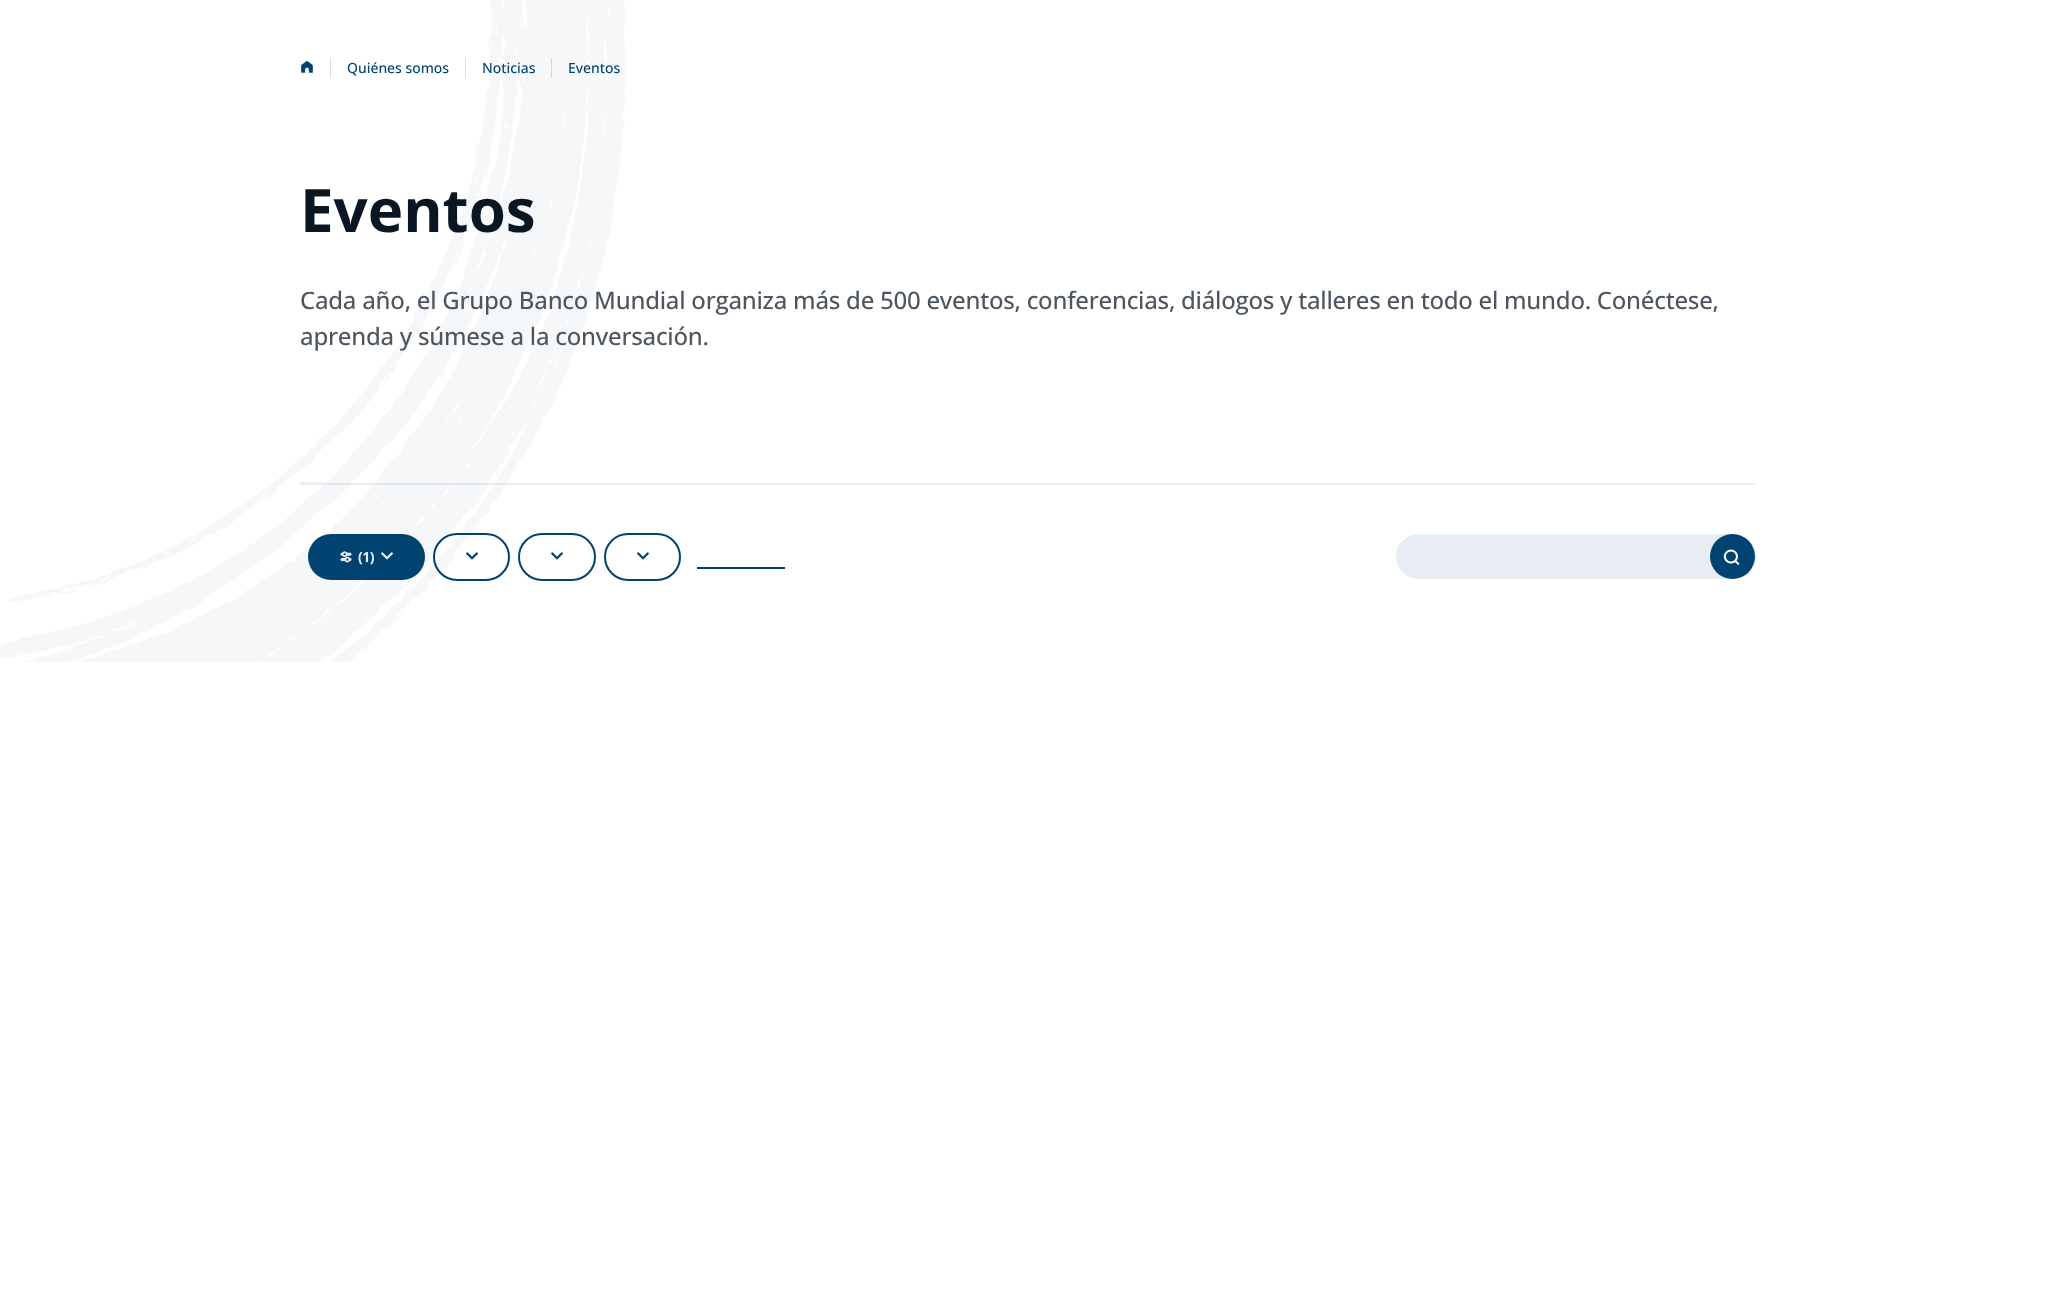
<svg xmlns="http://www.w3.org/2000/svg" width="2055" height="1311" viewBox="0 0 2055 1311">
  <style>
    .t1 { font: 500 14px Open Sans; fill: #004370; }
    .t2 { font: bold 60px Open Sans; fill: #0a1723; }
    .t3 { font: 500 24px Open Sans; letter-spacing: -0.25px; fill: #4d565f; }
    .t4 { font: bold 14px Open Sans; letter-spacing: -0.5px; fill: #e5ecf0; }
  </style>
  <rect width="100%" height="100%" fill="#fff"/>
  <image x="0" y="0" width="626" height="662" href="images/1.png"/>
  <image x="301" y="61" width="12" height="12" href="images/2.png"/>
  <rect x="330" y="58" width="1" height="20" fill="#d6dfe7"/>
  <text x="347" y="73" class="t1">Quiénes somos</text>
  <rect x="465" y="58" width="1" height="20" fill="#d6dfe7"/>
  <text x="482" y="73" class="t1">Noticias</text>
  <rect x="551" y="58" width="1" height="20" fill="#ced9e2"/>
  <text x="568" y="73" class="t1">Eventos</text>
  <text x="300" y="232" class="t2">Eventos</text>
  <text x="300" y="309" class="t3">Cada año, el Grupo Banco Mundial organiza más de 500 eventos, conferencias, diálogos y talleres en todo el mundo. Conéctese,</text>
  <text x="300" y="345" class="t3">aprenda y súmese a la conversación.</text>
  <rect x="300" y="483" width="1456" height="2" fill="#00396b14"/>
  <rect x="300" y="482" width="24" height="1" fill="#ebeff3"/>
  <rect x="308" y="534" width="117" height="46" rx="23" fill="#004370"/>
  <image x="340" y="551" width="12" height="12" href="images/3.png"/>
  <text x="358" y="562" class="t4">(1)</text>
  <image x="381" y="552" width="12" height="8" href="images/4.png"/>
  <rect x="434" y="534" width="75" height="46" rx="23" fill="none" stroke="#004370" stroke-width="2"/>
  <image x="466" y="552" width="12" height="8" href="images/5.png"/>
  <rect x="519" y="534" width="76" height="46" rx="23" fill="none" stroke="#004370" stroke-width="2"/>
  <image x="551" y="552" width="12" height="8" href="images/5.png"/>
  <rect x="605" y="534" width="75" height="46" rx="23" fill="none" stroke="#004370" stroke-width="2"/>
  <image x="637" y="552" width="12" height="8" href="images/5.png"/>
  <rect x="697" y="567" width="88" height="2" fill="#004370"/>
  <rect x="1396" y="534" width="360" height="45" rx="22.5" fill="#e7edf3"/>
  <circle cx="1732.5" cy="556.5" r="22.5" fill="#004370"/>
  <image x="1723" y="549" width="17" height="16" href="images/6.png"/>
</svg>
